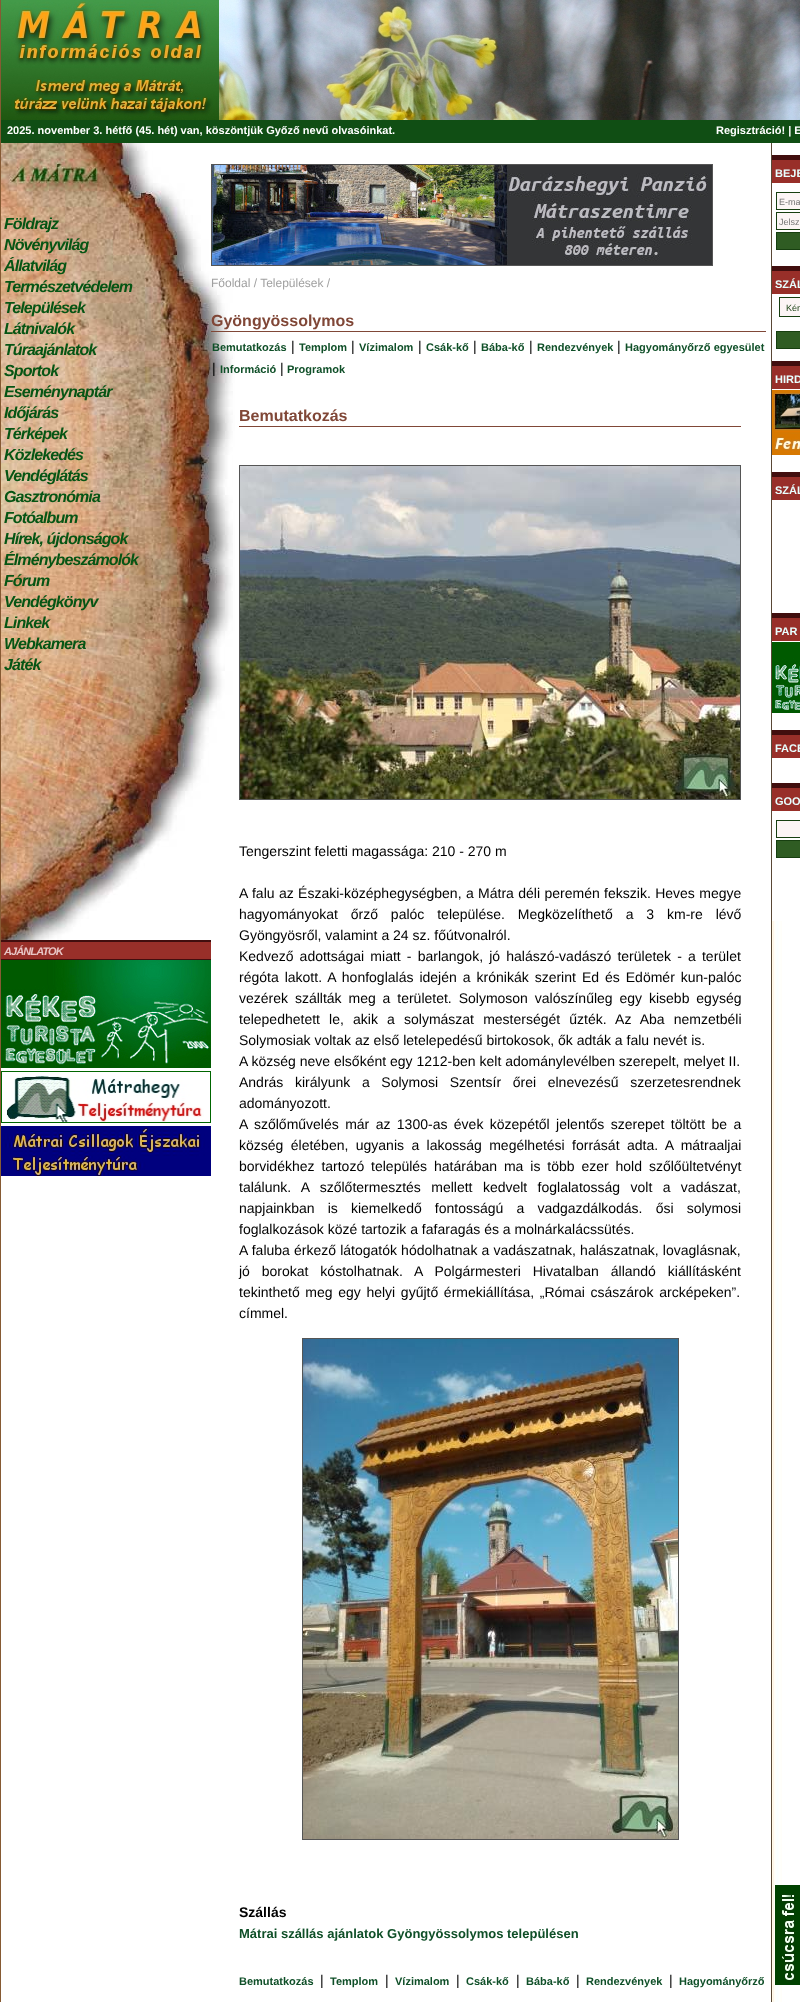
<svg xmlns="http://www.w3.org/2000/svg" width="800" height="2002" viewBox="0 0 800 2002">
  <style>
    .t1 { font: bold 11px Liberation Sans; fill: #fff; }
    .t2 { font: italic bold 16px Liberation Sans; letter-spacing: -0.9px; fill: #065514; }
    .t3 { font: italic bold 11px Liberation Sans; letter-spacing: -0.9px; fill: #e8c6c6; }
    .t4 { font: 12px Liberation Sans; fill: #a0a0a0; }
    .t5 { font: bold 16px Liberation Sans; fill: #804737; }
    .t6 { font: bold 11px Liberation Sans; fill: #0f4f28; }
    .t7 { font: 14px Liberation Sans; fill: #000; }
    .t8 { font: bold 14px Liberation Sans; fill: #000; }
    .t9 { font: bold 13px Liberation Sans; fill: #0f4f28; }
    .t10 { font: bold 11px Liberation Sans; fill: #e8ffff; }
    .t11 { font: 9px Liberation Sans; fill: #757575; }
    .t12 { font: 9px Liberation Sans; fill: #173f10; }
  </style>
  <rect width="100%" height="100%" fill="#fff"/>
  <rect x="0" y="0" width="1" height="2002" fill="#865a33"/>
  <image x="219" y="0" width="581" height="120" href="images/1.png"/>
  <image x="1" y="0" width="218" height="120" href="images/2.png"/>
  <rect x="1" y="120" width="799" height="23" fill="#104e14"/>
  <text x="7" y="134" class="t1">2025. november 3. hétfő (45. hét) van, köszöntjük Győző nevű olvasóinkat.</text>
  <text x="716" y="134" class="t1">Regisztráció! | E</text>
  <image x="771" y="143" width="11" height="1859" href="images/3.png"/>
  <image x="1" y="143" width="234" height="800" href="images/4.png"/>
  <text x="4" y="229" class="t2">Földrajz</text>
  <text x="4" y="250" class="t2">Növényvilág</text>
  <text x="4" y="271" class="t2">Állatvilág</text>
  <text x="4" y="292" class="t2">Természetvédelem</text>
  <text x="4" y="313" class="t2">Települések</text>
  <text x="4" y="334" class="t2">Látnivalók</text>
  <text x="4" y="355" class="t2">Túraajánlatok</text>
  <text x="4" y="376" class="t2">Sportok</text>
  <text x="4" y="397" class="t2">Eseménynaptár</text>
  <text x="4" y="418" class="t2">Időjárás</text>
  <text x="4" y="439" class="t2">Térképek</text>
  <text x="4" y="460" class="t2">Közlekedés</text>
  <text x="4" y="481" class="t2">Vendéglátás</text>
  <text x="4" y="502" class="t2">Gasztronómia</text>
  <text x="4" y="523" class="t2">Fotóalbum</text>
  <text x="4" y="544" class="t2">Hírek, újdonságok</text>
  <text x="4" y="565" class="t2">Élménybeszámolók</text>
  <text x="4" y="586" class="t2">Fórum</text>
  <text x="4" y="607" class="t2">Vendégkönyv</text>
  <text x="4" y="628" class="t2">Linkek</text>
  <text x="4" y="649" class="t2">Webkamera</text>
  <text x="4" y="670" class="t2">Játék</text>
  <rect x="1" y="942" width="210" height="17" fill="#982f29"/>
  <rect x="1" y="940" width="210" height="2" fill="#410e0e"/>
  <rect x="1" y="959" width="210" height="1" fill="#410e0e"/>
  <text x="4" y="955" class="t3">AJÁNLATOK</text>
  <image x="1" y="960" width="210" height="108" href="images/5.png"/>
  <rect x="1.5" y="1071.5" width="209" height="51" fill="none" stroke="#060"/>
  <image x="6" y="1075" width="198" height="47" href="images/6.png"/>
  <image x="1" y="1126" width="210" height="50" href="images/7.png"/>
  <rect x="211.5" y="164.5" width="501" height="101" fill="none" stroke="#555"/>
  <image x="212" y="165" width="500" height="100" href="images/8.png"/>
  <text x="211" y="287" class="t4">Főoldal / Települések /</text>
  <rect x="211" y="331" width="555" height="1" fill="#804737"/>
  <text x="211" y="326" class="t5">Gyöngyössolymos</text>
  <text x="212" y="351" class="t6">Bemutatkozás</text>
  <text x="291" y="351" class="t7">|</text>
  <text x="299" y="351" class="t6">Templom</text>
  <text x="351" y="351" class="t7">|</text>
  <text x="359" y="351" class="t6">Vízimalom</text>
  <text x="418" y="351" class="t7">|</text>
  <text x="426" y="351" class="t6">Csák-kő</text>
  <text x="473" y="351" class="t7">|</text>
  <text x="481" y="351" class="t6">Bába-kő</text>
  <text x="529" y="351" class="t7">|</text>
  <text x="537" y="351" class="t6">Rendezvények</text>
  <text x="617" y="351" class="t7">|</text>
  <text x="625" y="351" class="t6">Hagyományőrző egyesület</text>
  <text x="212" y="373" class="t7">|</text>
  <text x="220" y="373" class="t6">Információ</text>
  <text x="280" y="373" class="t7">|</text>
  <text x="287" y="373" class="t6">Programok</text>
  <rect x="239" y="426" width="502" height="1" fill="#804737"/>
  <text x="239" y="421" class="t5">Bemutatkozás</text>
  <rect x="239.5" y="465.5" width="501" height="334" fill="none" stroke="#555"/>
  <image x="240" y="466" width="500" height="333" href="images/9.png"/>
  <text x="239" y="856" class="t7">Tengerszint feletti magassága: 210 - 270 m</text>
  <text x="239" y="898" word-spacing="0.5" class="t7">A falu az Északi-középhegységben, a Mátra déli peremén fekszik. Heves megye</text>
  <text x="239" y="919" word-spacing="9" class="t7">hagyományokat őrző palóc települése. Megközelíthető a 3 km-re lévő</text>
  <text x="239" y="940" class="t7">Gyöngyösről, valamint a 24 sz. főútvonalról.</text>
  <text x="239" y="961" word-spacing="2.25" class="t7">Kedvező adottságai miatt - barlangok, jó halászó-vadászó területek - a terület</text>
  <text x="239" y="982" word-spacing="2.1" class="t7">régóta lakott. A honfoglalás idején a krónikák szerint Ed és Edömér kun-palóc</text>
  <text x="239" y="1003" word-spacing="3" class="t7">vezérek szállták meg a területet. Solymoson valószínűleg egy kisebb egység</text>
  <text x="239" y="1024" word-spacing="5.25" class="t7">telepedhetett le, akik a solymászat mesterségét űzték. Az Aba nemzetbéli</text>
  <text x="239" y="1045" class="t7">Solymosiak voltak az első letelepedésű birtokosok, ők adták a falu nevét is.</text>
  <text x="239" y="1066" class="t7">A község neve elsőként egy 1212-ben kelt adománylevélben szerepelt, melyet II.</text>
  <text x="239" y="1087" word-spacing="7.75" class="t7">András királyunk a Solymosi Szentsír őrei elnevezésű szerzetesrendnek</text>
  <text x="239" y="1108" class="t7">adományozott.</text>
  <text x="239" y="1129" word-spacing="2.5" class="t7">A szőlőművelés már az 1300-as évek közepétől jelentős szerepet töltött be a</text>
  <text x="239" y="1150" word-spacing="3.5" class="t7">község életében, ugyanis a lakosság megélhetési forrását adta. A mátraaljai</text>
  <text x="239" y="1171" word-spacing="3" class="t7">borvidékhez tartozó település határában ma is több ezer hold szőlőültetvényt</text>
  <text x="239" y="1192" word-spacing="6.5" class="t7">találunk. A szőlőtermesztés mellett kedvelt foglalatosság volt a vadászat,</text>
  <text x="239" y="1213" word-spacing="9.25" class="t7">napjainkban is kiemelkedő fontosságú a vadgazdálkodás. ősi solymosi</text>
  <text x="239" y="1234" class="t7">foglalkozások közé tartozik a fafaragás és a molnárkalácssütés.</text>
  <text x="239" y="1255" word-spacing="0.25" class="t7">A faluba érkező látogatók hódolhatnak a vadászatnak, halászatnak, lovaglásnak,</text>
  <text x="239" y="1276" word-spacing="8" class="t7">jó borokat kóstolhatnak. A Polgármesteri Hivatalban állandó kiállításként</text>
  <text x="239" y="1297" word-spacing="1.75" class="t7">tekinthető meg egy helyi gyűjtő érmekiállítása, „Római császárok arcképeken”.</text>
  <text x="239" y="1318" class="t7">címmel.</text>
  <rect x="302.5" y="1338.5" width="376" height="501" fill="none" stroke="#555"/>
  <image x="303" y="1339" width="375" height="500" href="images/10.png"/>
  <text x="239" y="1917" class="t8">Szállás</text>
  <text x="239" y="1938" class="t9">Mátrai szállás ajánlatok Gyöngyössolymos településen</text>
  <text x="239" y="1985" class="t6">Bemutatkozás</text>
  <text x="320" y="1985" class="t7">|</text>
  <text x="330" y="1985" class="t6">Templom</text>
  <text x="385" y="1985" class="t7">|</text>
  <text x="395" y="1985" class="t6">Vízimalom</text>
  <text x="456" y="1985" class="t7">|</text>
  <text x="466" y="1985" class="t6">Csák-kő</text>
  <text x="516" y="1985" class="t7">|</text>
  <text x="526" y="1985" class="t6">Bába-kő</text>
  <text x="576" y="1985" class="t7">|</text>
  <text x="586" y="1985" class="t6">Rendezvények</text>
  <text x="669" y="1985" class="t7">|</text>
  <text x="679" y="1985" class="t6">Hagyományőrző</text>
  <rect x="772" y="143" width="10" height="778" fill="#fff"/>
  <rect x="772" y="160" width="28" height="23" fill="#982f29"/>
  <rect x="772" y="155" width="28" height="5" fill="#410e0e"/>
  <text x="775" y="177" class="t10">BEJE</text>
  <rect x="776.5" y="192.5" width="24" height="17" fill="#fcf5f5" stroke="#173f10"/>
  <text x="779" y="205" class="t11">E-ma</text>
  <rect x="776.5" y="212.5" width="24" height="17" fill="#fcf5f5" stroke="#173f10"/>
  <text x="779" y="225" class="t11">Jelsz</text>
  <rect x="776.5" y="232.5" width="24" height="17" fill="#2f5c23" stroke="#173f10"/>
  <rect x="772" y="271" width="28" height="23" fill="#982f29"/>
  <rect x="772" y="266" width="28" height="5" fill="#410e0e"/>
  <text x="775" y="288" class="t10">SZÁL</text>
  <rect x="779.5" y="297.5" width="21" height="19" fill="#fcf5f5" stroke="#173f10"/>
  <text x="786" y="311" class="t12">Kér</text>
  <rect x="776.5" y="331.5" width="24" height="17" fill="#2f5c23" stroke="#173f10"/>
  <rect x="772" y="366" width="28" height="23" fill="#982f29"/>
  <rect x="772" y="361" width="28" height="5" fill="#410e0e"/>
  <text x="775" y="383" class="t10">HIRD</text>
  <image x="772" y="390" width="28" height="65" href="images/11.png"/>
  <rect x="772" y="477" width="28" height="23" fill="#982f29"/>
  <rect x="772" y="472" width="28" height="5" fill="#410e0e"/>
  <text x="775" y="494" class="t10">SZÁL</text>
  <rect x="772" y="618" width="28" height="23" fill="#982f29"/>
  <rect x="772" y="613" width="28" height="5" fill="#410e0e"/>
  <text x="775" y="635" class="t10">PAR</text>
  <image x="772" y="642" width="28" height="71" href="images/12.png"/>
  <rect x="772" y="735" width="28" height="23" fill="#982f29"/>
  <rect x="772" y="730" width="28" height="5" fill="#410e0e"/>
  <text x="775" y="752" class="t10">FACE</text>
  <rect x="772" y="788" width="28" height="23" fill="#982f29"/>
  <rect x="772" y="783" width="28" height="5" fill="#410e0e"/>
  <text x="775" y="805" class="t10">GOO</text>
  <rect x="776.5" y="820.5" width="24" height="17" fill="#fcf5f5" stroke="#173f10"/>
  <rect x="776.5" y="840.5" width="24" height="17" fill="#2f5c23" stroke="#173f10"/>
  <image x="775" y="1885" width="25" height="100" href="images/13.png"/>
</svg>
